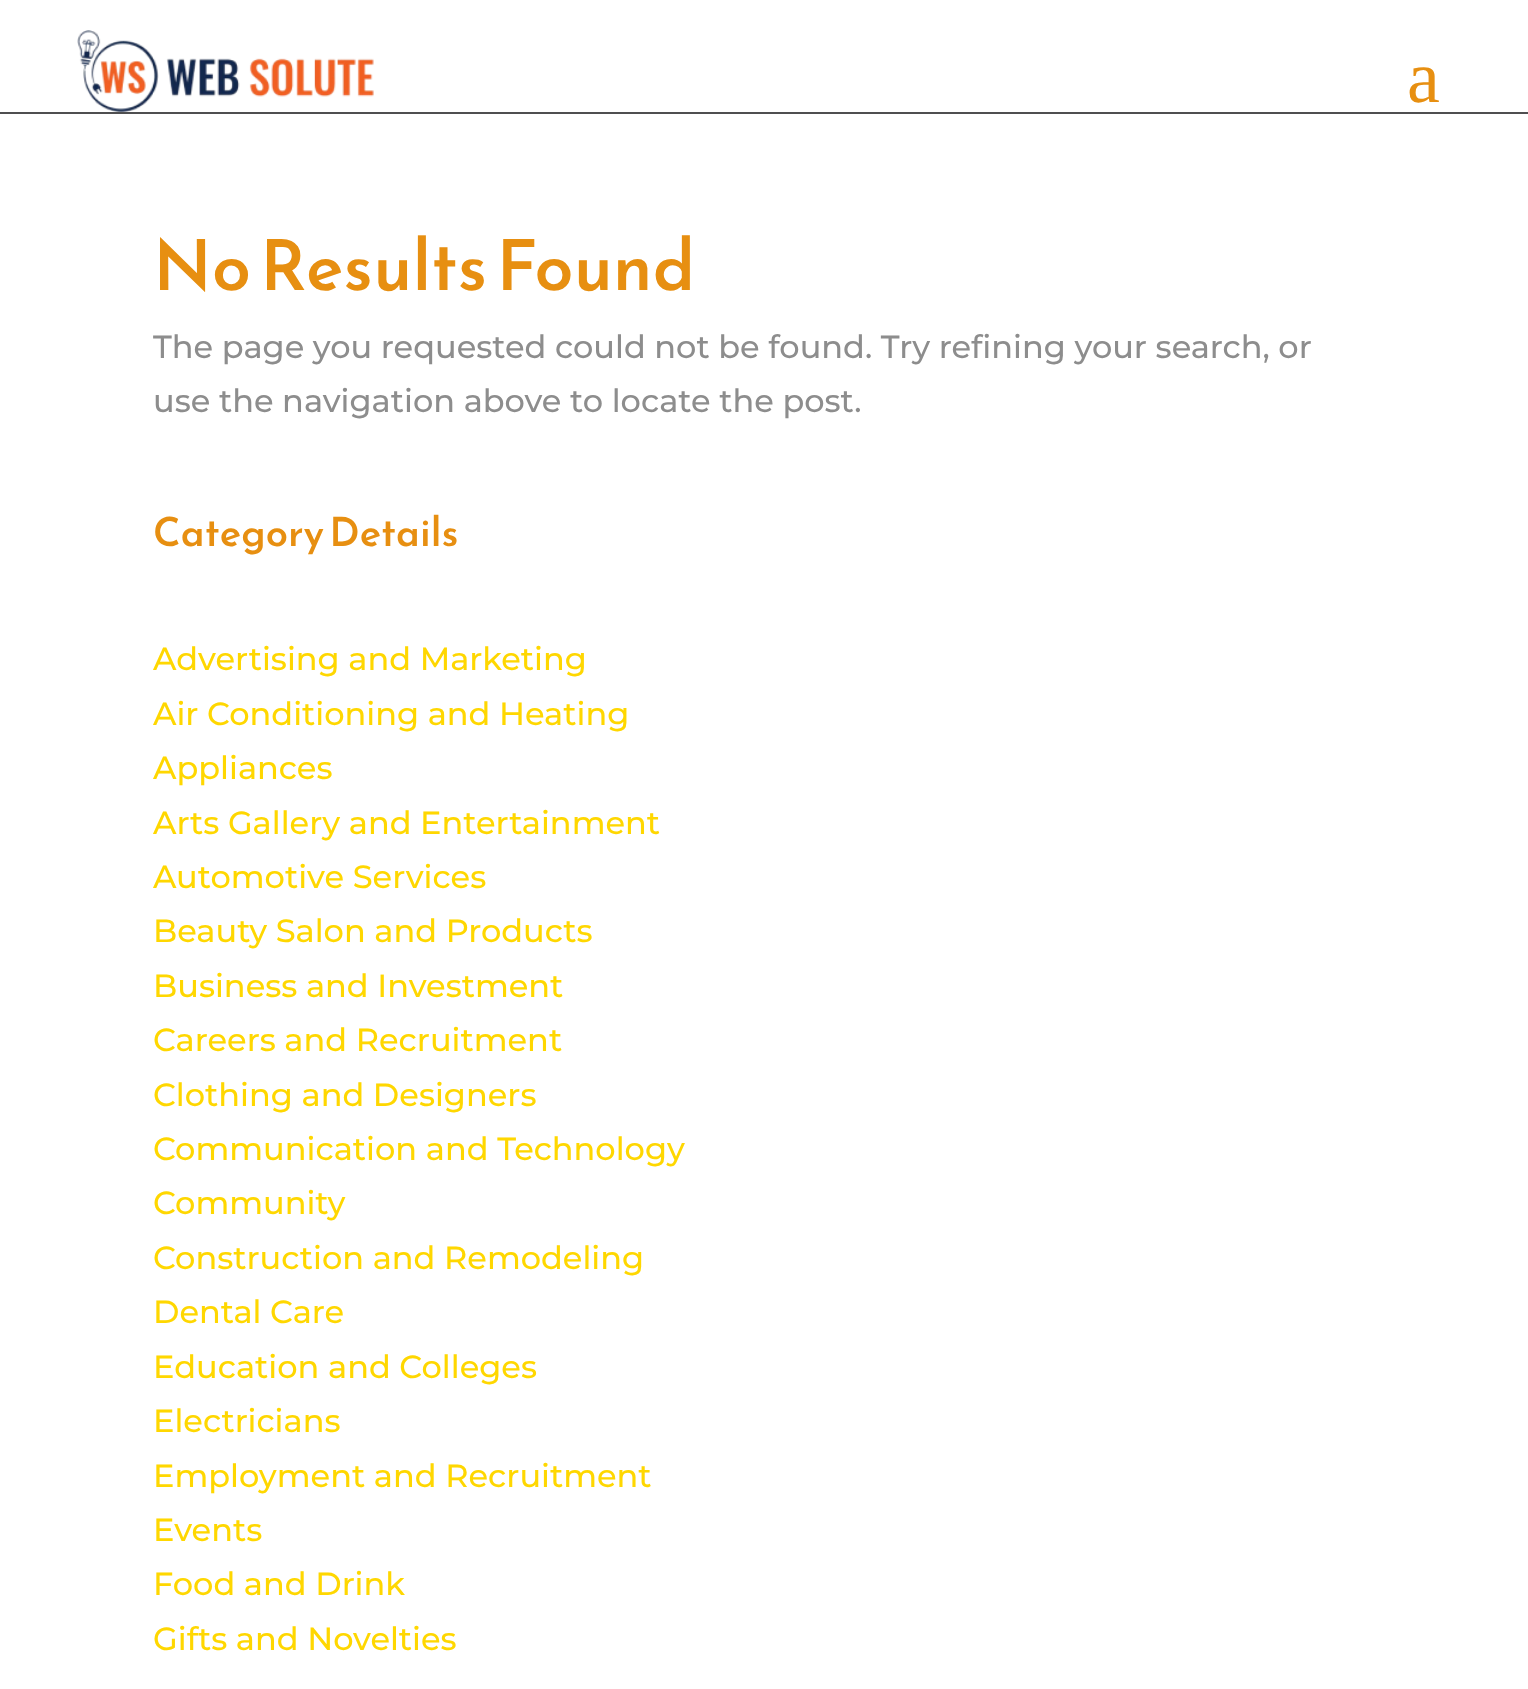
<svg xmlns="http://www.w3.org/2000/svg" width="1528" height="1689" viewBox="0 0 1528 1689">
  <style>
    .t1 { font: 74px Liberation Serif; fill: #e78f11; }
    .t2 { font: 500 70px Reem Kufi; fill: #e78f11; }
    .t3 { font: 500 32px Montserrat; fill: #8d8d8d; }
    .t4 { font: 500 40px Reem Kufi; fill: #e78f11; }
    .t5 { font: 500 32px Montserrat; fill: #ffd700; }
  </style>
  <rect width="100%" height="100%" fill="#fff"/>
  <rect x="0" y="112" width="1528" height="2" fill="#4f4f50"/>
  <image x="77" y="30" width="297" height="82" href="images/1.png"/>
  <text x="1407" y="102" class="t1">a</text>
  <text x="153" y="290" class="t2">No Results Found</text>
  <text x="153" y="358" class="t3">The page you requested could not be found. Try refining your search, or</text>
  <text x="153" y="412" class="t3">use the navigation above to locate the post.</text>
  <text x="153" y="546" class="t4">Category Details</text>
  <text x="153" y="670" class="t5">Advertising and Marketing</text>
  <text x="153" y="725" class="t5">Air Conditioning and Heating</text>
  <text x="153" y="779" class="t5">Appliances</text>
  <text x="153" y="834" class="t5">Arts Gallery and Entertainment</text>
  <text x="153" y="888" class="t5">Automotive Services</text>
  <text x="153" y="942" class="t5">Beauty Salon and Products</text>
  <text x="153" y="997" class="t5">Business and Investment</text>
  <text x="153" y="1051" class="t5">Careers and Recruitment</text>
  <text x="153" y="1106" class="t5">Clothing and Designers</text>
  <text x="153" y="1160" class="t5">Communication and Technology</text>
  <text x="153" y="1214" class="t5">Community</text>
  <text x="153" y="1269" class="t5">Construction and Remodeling</text>
  <text x="153" y="1323" class="t5">Dental Care</text>
  <text x="153" y="1378" class="t5">Education and Colleges</text>
  <text x="153" y="1432" class="t5">Electricians</text>
  <text x="153" y="1487" class="t5">Employment and Recruitment</text>
  <text x="153" y="1541" class="t5">Events</text>
  <text x="153" y="1595" class="t5">Food and Drink</text>
  <text x="153" y="1650" class="t5">Gifts and Novelties</text>
</svg>
